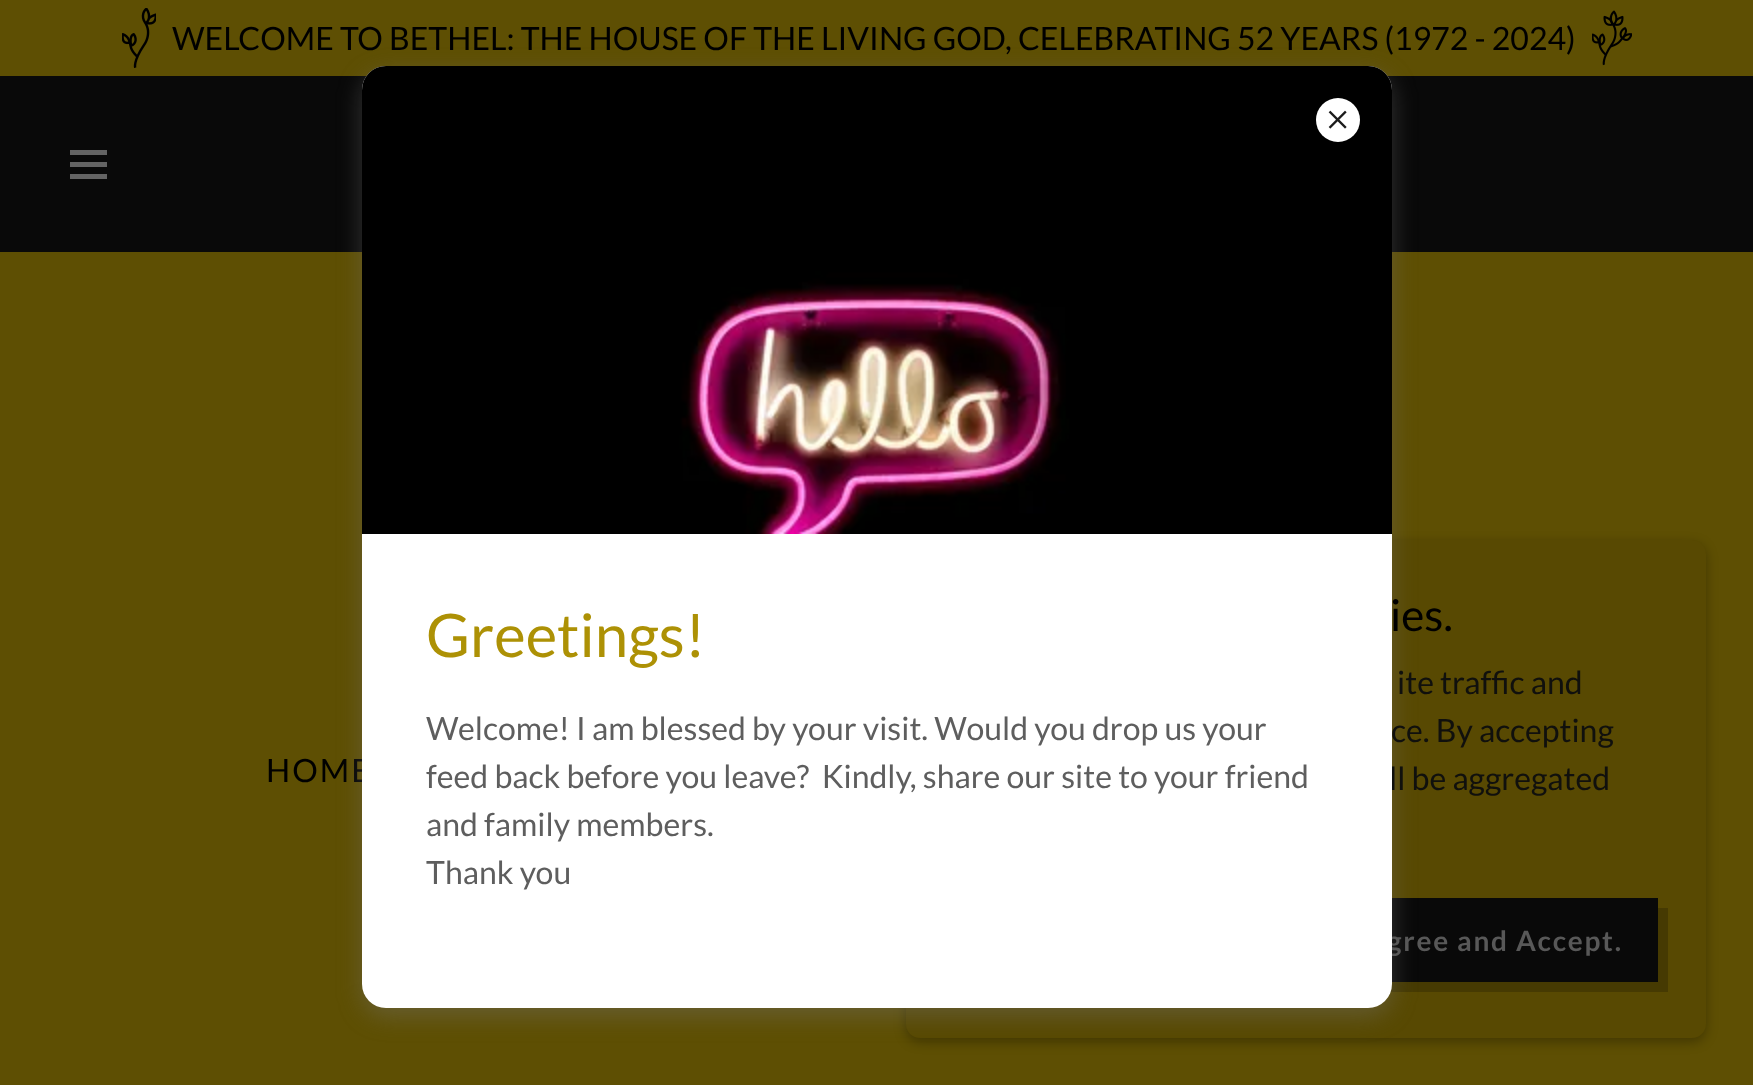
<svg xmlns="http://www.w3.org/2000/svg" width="1753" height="1085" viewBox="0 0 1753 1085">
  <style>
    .t1 { font: 32px Lato; fill: #000; }
    .t2 { font: 32px Lato; letter-spacing: 2px; fill: #000; }
    .t3 { font: 32px Lato; fill: #10100d; }
    .t4 { font: bold 28px Lato; letter-spacing: 1.75px; fill: #585858; }
    .t5 { font: 60px Lato; fill: #ad9105; }
    .t6 { font: 32px Lato; fill: #5e5e5e; }
    .t7 { font: 44px Lato; fill: #000; }
  </style>
  <rect width="100%" height="100%" fill="#5e4f03"/>
  <rect x="0" y="76" width="1753" height="176" fill="#090909"/>
  <image x="122" y="8" width="34" height="60" href="images/1.png"/>
  <text x="172" y="50" class="t1">WELCOME TO BETHEL: THE HOUSE OF THE LIVING GOD, CELEBRATING 52 YEARS (1972 - 2024)</text>
  <image x="1592" y="10" width="40" height="56" href="images/2.png"/>
  <rect x="70" y="150" width="37" height="5" fill="#636363"/>
  <rect x="70" y="162" width="37" height="5" fill="#636363"/>
  <rect x="70" y="174" width="37" height="5" fill="#636363"/>
  <text x="266" y="782" class="t2">HOME</text>
  <rect x="906" y="544" width="800" height="498" rx="14" fill="#0000004d" filter="blur(6px)"/>
  <rect x="906" y="540" width="800" height="498" rx="14" fill="#584902"/>
  <rect x="1392" y="898" width="266" height="84" fill="#090909"/>
  <path d="M1340 982V992H1668V908H1658V982Z" fill="#463a02"/>
  <rect x="362" y="74" width="1030" height="942" rx="24" fill="#75757566" filter="blur(12px)"/>
  <text x="1391" y="742" class="t3">ce. By accepting</text>
  <text x="1389" y="790" class="t3">ll be aggregated</text>
  <text x="1387" y="951" class="t4">gree and Accept.</text>
  <rect x="362" y="66" width="1030" height="942" rx="24" fill="#fff"/>
  <image x="362" y="66" width="1030" height="468" href="images/4.png"/>
  <circle cx="1338" cy="120" r="22" fill="#fff"/>
  <image x="1328" y="110" width="19" height="19" href="images/3.png"/>
  <text x="426" y="657" class="t5">Greetings!</text>
  <text x="426" y="740" class="t6">Welcome! I am blessed by your visit. Would you drop us your</text>
  <text x="426" y="788" class="t6" xml:space="preserve">feed back before you leave?  Kindly, share our site to your friend</text>
  <text x="426" y="836" class="t6">and family members.</text>
  <text x="426" y="884" class="t6">Thank you</text>
  <text x="1390" y="631" class="t7">ies.</text>
  <text x="1397" y="694" class="t3">ite traffic and</text>
</svg>
